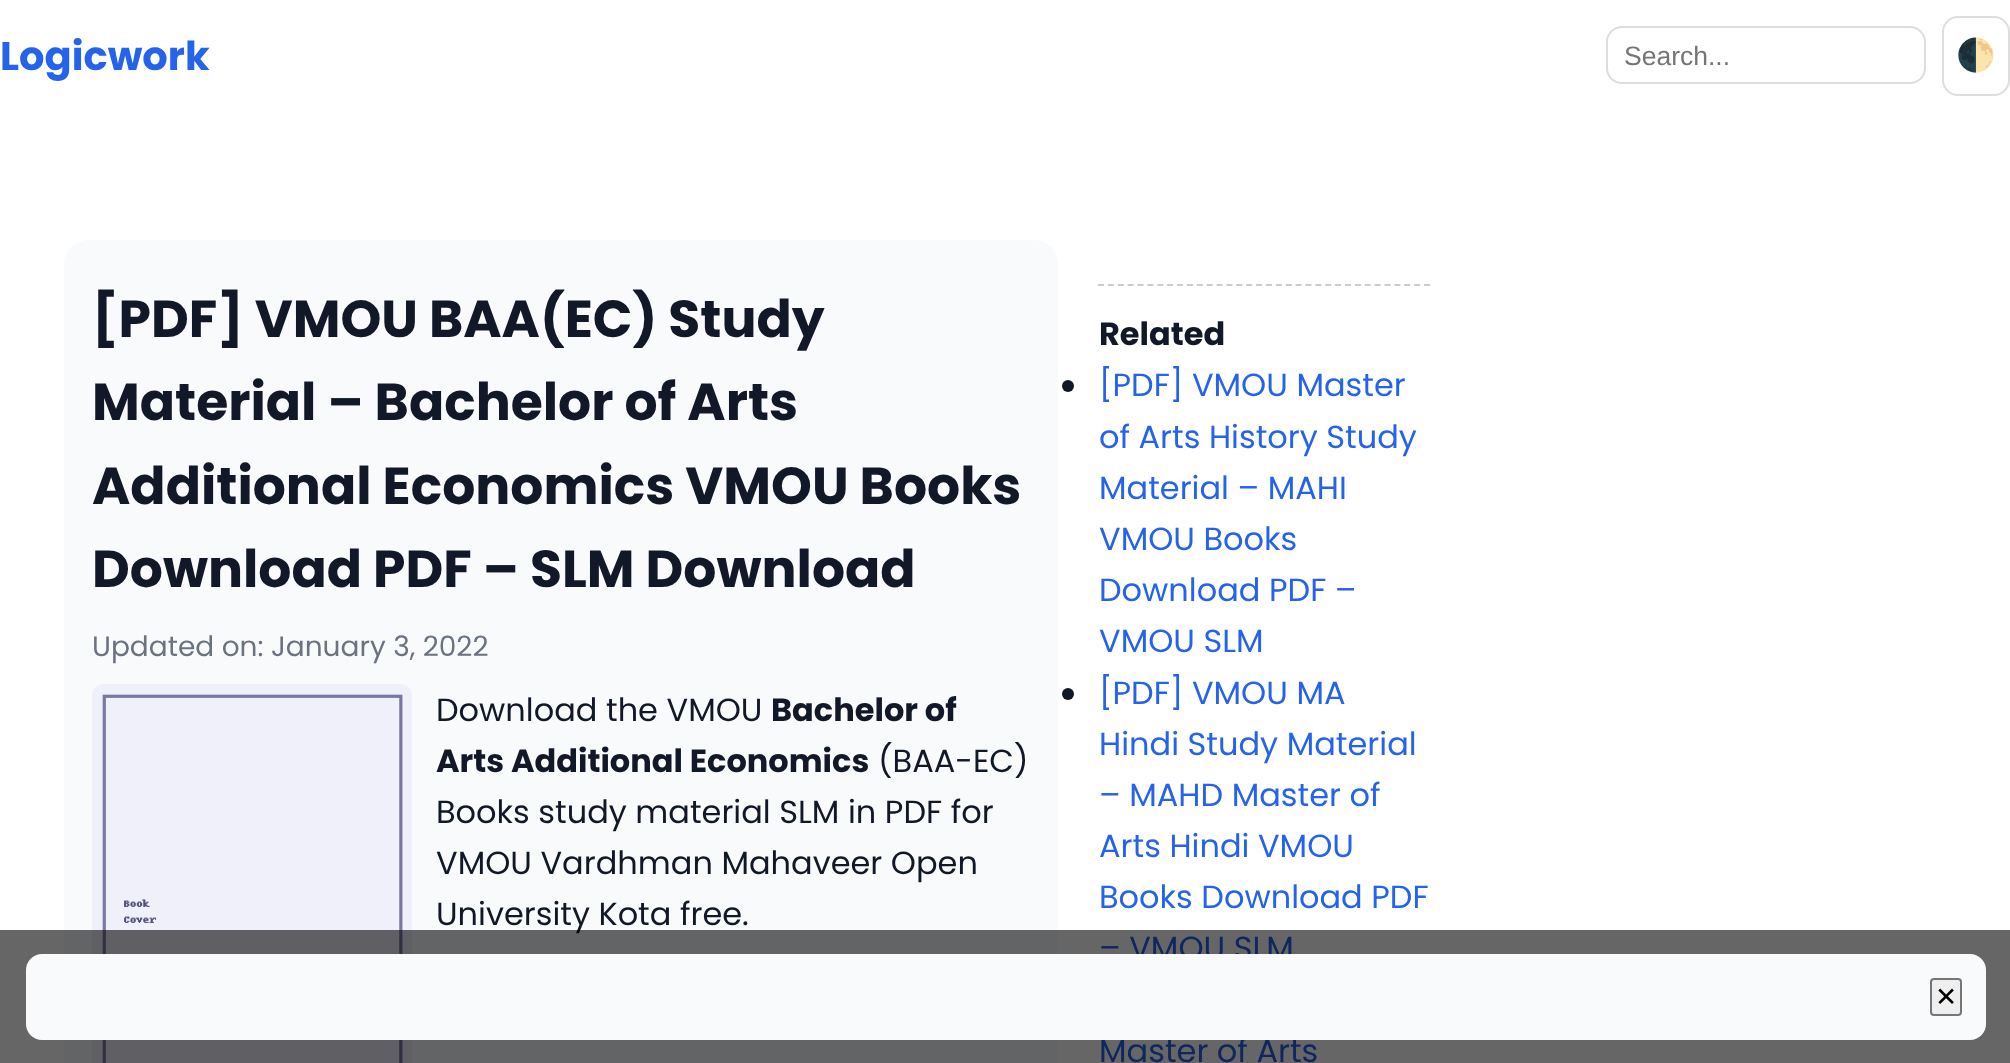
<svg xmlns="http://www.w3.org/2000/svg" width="2010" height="1063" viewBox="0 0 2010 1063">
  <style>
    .t1 { font: bold 40px Poppins; fill: #2563eb; }
    .t2 { font: 26.5px Liberation Sans; fill: #757575; }
    .t3 { font: 32px Noto Color Emoji; fill: #111827; }
    .t4 { font: bold 52px Poppins; fill: #111827; }
    .t5 { font: 28px Poppins; fill: #6b7280; }
    .t6 { font: 32px Poppins; fill: #111827; }
    .t7 { font: bold 32px Poppins; fill: #111827; }
    .t8 { font: 32px Poppins; fill: #2563eb; }
    .t9 { font: 26.5px DejaVu Sans; fill: #000; }
  </style>
  <rect width="100%" height="100%" fill="#fff"/>
  <text x="0" y="70" class="t1">Logicwork</text>
  <rect x="1607" y="27" width="318" height="56" rx="15" fill="none" stroke="#ddd" stroke-width="2"/>
  <text x="1624" y="65" class="t2">Search...</text>
  <rect x="1943" y="17" width="66" height="78" rx="15" fill="none" stroke="#ddd" stroke-width="2"/>
  <text x="1956" y="66" class="t3">🌓</text>
  <rect x="64" y="240" width="994" height="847" rx="24" fill="#f8fafc"/>
  <text x="92" y="337" class="t4">[PDF] VMOU BAA(EC) Study</text>
  <text x="92" y="420" class="t4">Material – Bachelor of Arts</text>
  <text x="92" y="504" class="t4">Additional Economics VMOU Books</text>
  <text x="92" y="587" class="t4">Download PDF – SLM Download</text>
  <text x="92" y="656" class="t5">Updated on: January 3, 2022</text>
  <image x="92" y="684" width="320" height="379" href="images/1.png"/>
  <text x="436" y="721" class="t6">Download the VMOU</text>
  <text x="771" y="721" class="t7">Bachelor of</text>
  <text x="436" y="772" class="t7">Arts Additional Economics</text>
  <text x="878" y="772" class="t6">(BAA-EC)</text>
  <text x="436" y="823" class="t6">Books study material SLM in PDF for</text>
  <text x="436" y="874" class="t6">VMOU Vardhman Mahaveer Open</text>
  <text x="436" y="925" class="t6">University Kota free.</text>
  <path d="M1098 285H1430" fill="none" stroke="#ccc" stroke-width="2" stroke-dasharray="6 3.88"/>
  <text x="1099" y="345" class="t7">Related</text>
  <circle cx="1068" cy="386" r="6" fill="#111827"/>
  <text x="1099" y="396" class="t8">[PDF] VMOU Master</text>
  <text x="1099" y="448" class="t8">of Arts History Study</text>
  <text x="1099" y="499" class="t8">Material – MAHI</text>
  <text x="1099" y="550" class="t8">VMOU Books</text>
  <text x="1099" y="601" class="t8">Download PDF –</text>
  <text x="1099" y="652" class="t8">VMOU SLM</text>
  <circle cx="1068" cy="694" r="6" fill="#111827"/>
  <text x="1099" y="704" class="t8">[PDF] VMOU MA</text>
  <text x="1099" y="755" class="t8">Hindi Study Material</text>
  <text x="1099" y="806" class="t8">– MAHD Master of</text>
  <text x="1099" y="857" class="t8">Arts Hindi VMOU</text>
  <text x="1099" y="908" class="t8">Books Download PDF</text>
  <text x="1099" y="959" class="t8">– VMOU SLM</text>
  <text x="1099" y="1062" class="t8">Master of Arts</text>
  <rect x="0" y="930" width="2010" height="133" fill="#00000099"/>
  <rect x="26" y="954" width="1960" height="86" rx="16" fill="#f8fafc"/>
  <rect x="1931" y="979" width="30" height="36" rx="3" fill="#efefef" stroke="#767676" stroke-width="2"/>
  <text x="1935" y="1006" class="t9">✕</text>
</svg>
